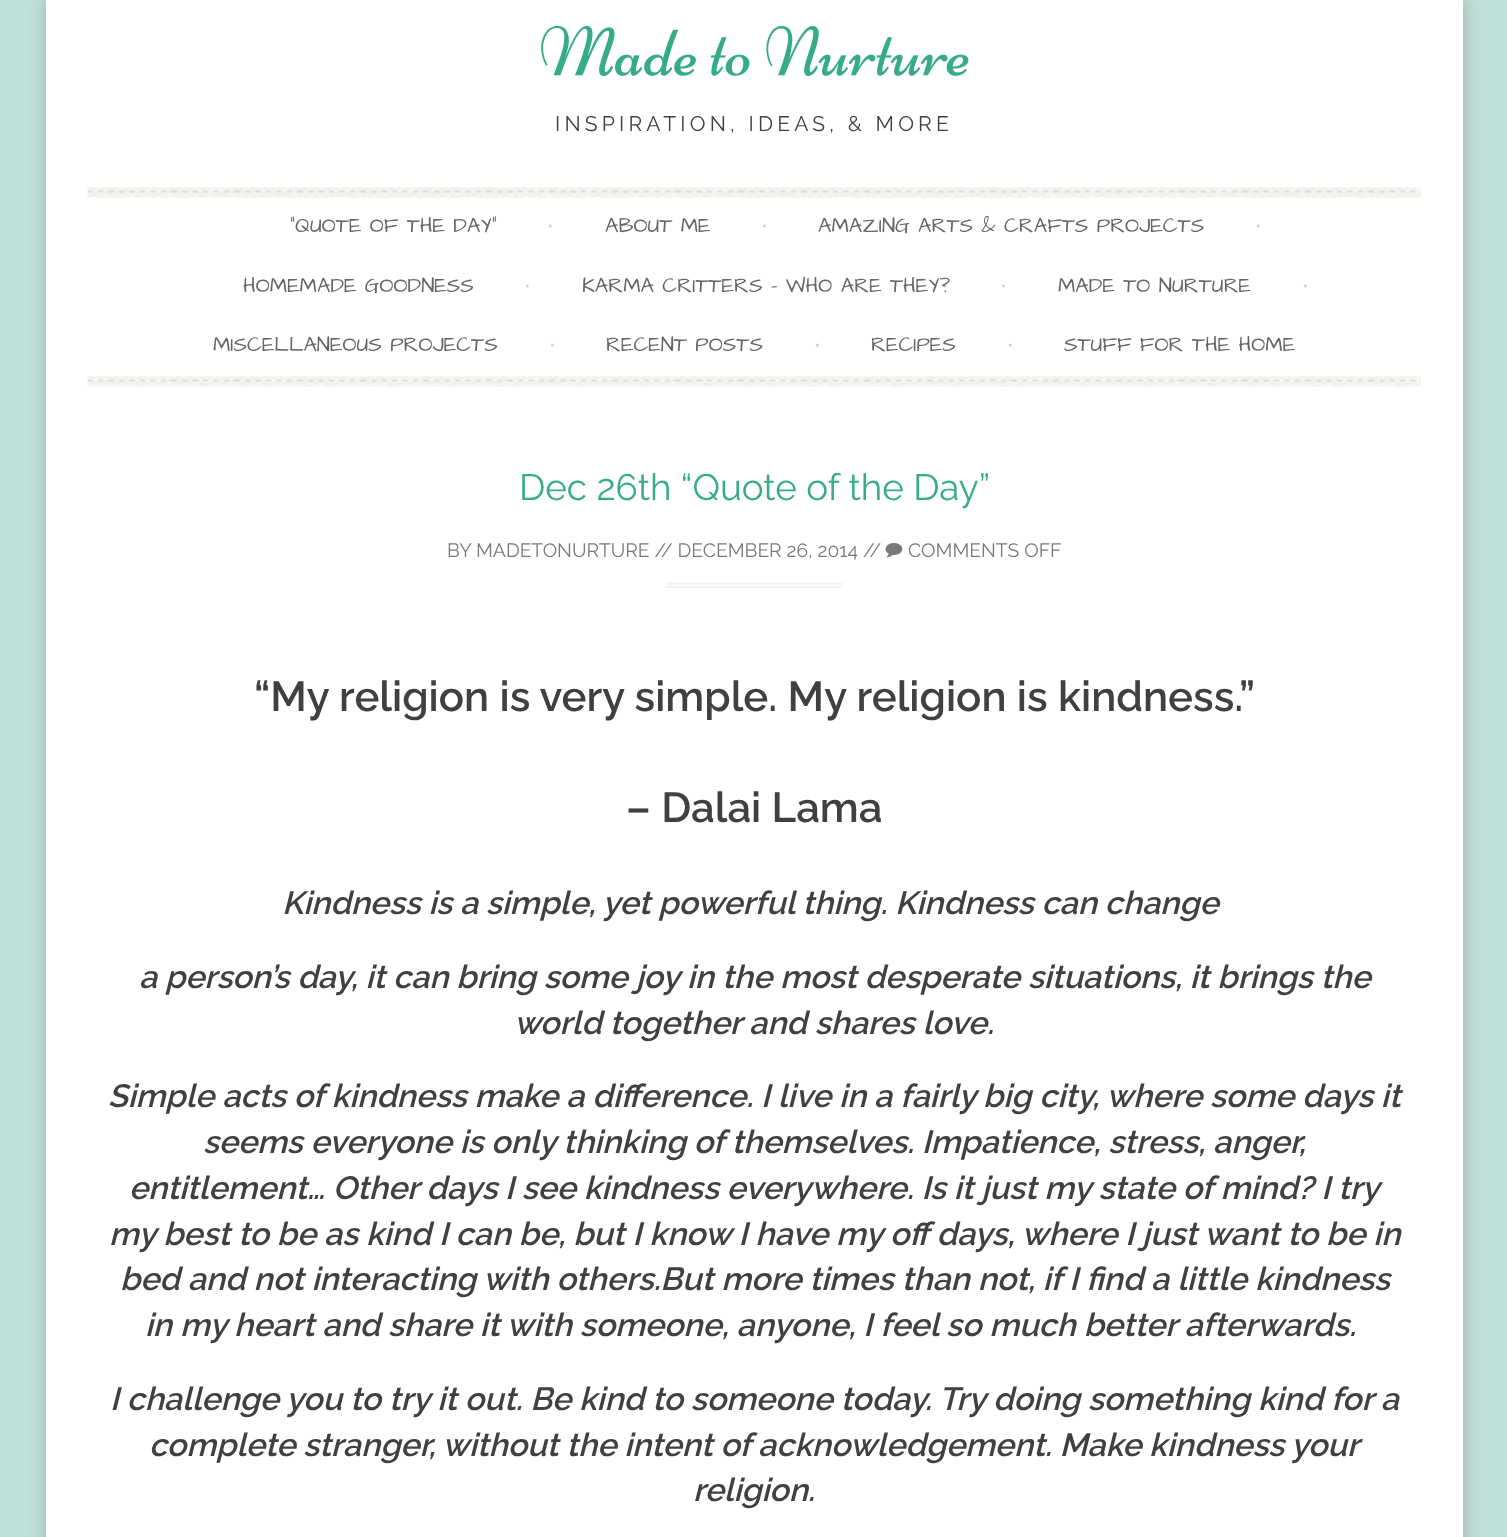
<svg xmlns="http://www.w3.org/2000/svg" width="1507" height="1537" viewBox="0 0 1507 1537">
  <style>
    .t1 { font: 21px Raleway; letter-spacing: 4.2px; fill: #404040; }
    .t2 { font: 21px Architects Daughter; fill: #666; }
    .t3 { font: 24px Architects Daughter; fill: #d2d2d2; }
    .t4 { font: 36.75px Raleway; fill: #36ab8a; }
    .t5 { font: 19.25px Raleway; fill: #797979; }
    .t6 { font: 600 42px Raleway; fill: #404040; }
    .t7 { font: italic 600 32.15px Raleway; fill: #404040; }
  </style>
  <rect width="100%" height="100%" fill="#c0e0da"/>
  <rect x="46" y="0" width="1417" height="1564" fill="#00000033" filter="blur(9px)"/>
  <rect x="46" y="0" width="1417" height="1537" fill="#fff"/>
  <image x="541" y="26" width="428" height="50" href="images/1.png"/>
  <text x="555" y="131" class="t1">INSPIRATION, IDEAS, &amp; MORE</text>
  <image x="87" y="187" width="1334" height="11" href="images/2.png"/>
  <text x="290" y="232" class="t2">“QUOTE OF THE DAY”</text>
  <text x="548" y="232" class="t3">•</text>
  <text x="605" y="232" class="t2">ABOUT ME</text>
  <text x="762" y="232" class="t3">•</text>
  <text x="818" y="232" class="t2">AMAZING ARTS &amp; CRAFTS PROJECTS</text>
  <text x="1256" y="232" class="t3">•</text>
  <text x="243" y="292" class="t2">HOMEMADE GOODNESS</text>
  <text x="525" y="292" class="t3">•</text>
  <text x="582" y="292" class="t2">KARMA CRITTERS – WHO ARE THEY?</text>
  <text x="1001" y="292" class="t3">•</text>
  <text x="1058" y="292" class="t2">MADE TO NURTURE</text>
  <text x="1303" y="292" class="t3">•</text>
  <text x="213" y="351" class="t2">MISCELLANEOUS PROJECTS</text>
  <text x="550" y="351" class="t3">•</text>
  <text x="606" y="351" class="t2">RECENT POSTS</text>
  <text x="815" y="351" class="t3">•</text>
  <text x="871" y="351" class="t2">RECIPES</text>
  <text x="1008" y="351" class="t3">•</text>
  <text x="1064" y="351" class="t2">STUFF FOR THE HOME</text>
  <image x="87" y="376" width="1334" height="11" href="images/3.png"/>
  <text x="519" y="500" class="t4">Dec 26th “Quote of the Day”</text>
  <image x="666" y="582" width="176" height="6" href="images/4.png"/>
  <text x="447" y="557" class="t5">BY MADETONURTURE // DECEMBER 26, 2014 //</text>
  <image x="885" y="543" width="18" height="15" href="images/5.png"/>
  <text x="908" y="557" class="t5">COMMENTS OFF</text>
  <text x="254" y="711" class="t6">“My religion is very simple. My religion is kindness.”</text>
  <text x="626" y="822" class="t6">– Dalai Lama</text>
  <text x="282" y="914" class="t7">Kindness is a simple, yet powerful thing. Kindness can change</text>
  <text x="139" y="988" class="t7">a person’s day, it can bring some joy in the most desperate situations, it brings the</text>
  <text x="514" y="1034" class="t7">world together and shares love.</text>
  <text x="108" y="1107" class="t7">Simple acts of kindness make a difference. I live in a fairly big city, where some days it</text>
  <text x="203" y="1153" word-spacing="-0.1" class="t7">seems everyone is only thinking of themselves. Impatience, stress, anger,</text>
  <text x="129" y="1199" class="t7">entitlement… Other days I see kindness everywhere. Is it just my state of mind? I try</text>
  <text x="109" y="1245" class="t7">my best to be as kind I can be, but I know I have my off days, where I just want to be in</text>
  <text x="120" y="1290" class="t7">bed and not interacting with others.But more times than not, if I find a little kindness</text>
  <text x="145" y="1336" class="t7">in my heart and share it with someone, anyone, I feel so much better afterwards.</text>
  <text x="110" y="1410" class="t7">I challenge you to try it out. Be kind to someone today. Try doing something kind for a</text>
  <text x="149" y="1456" word-spacing="-0.1" class="t7">complete stranger, without the intent of acknowledgement. Make kindness your</text>
  <text x="693" y="1501" class="t7">religion.</text>
</svg>
